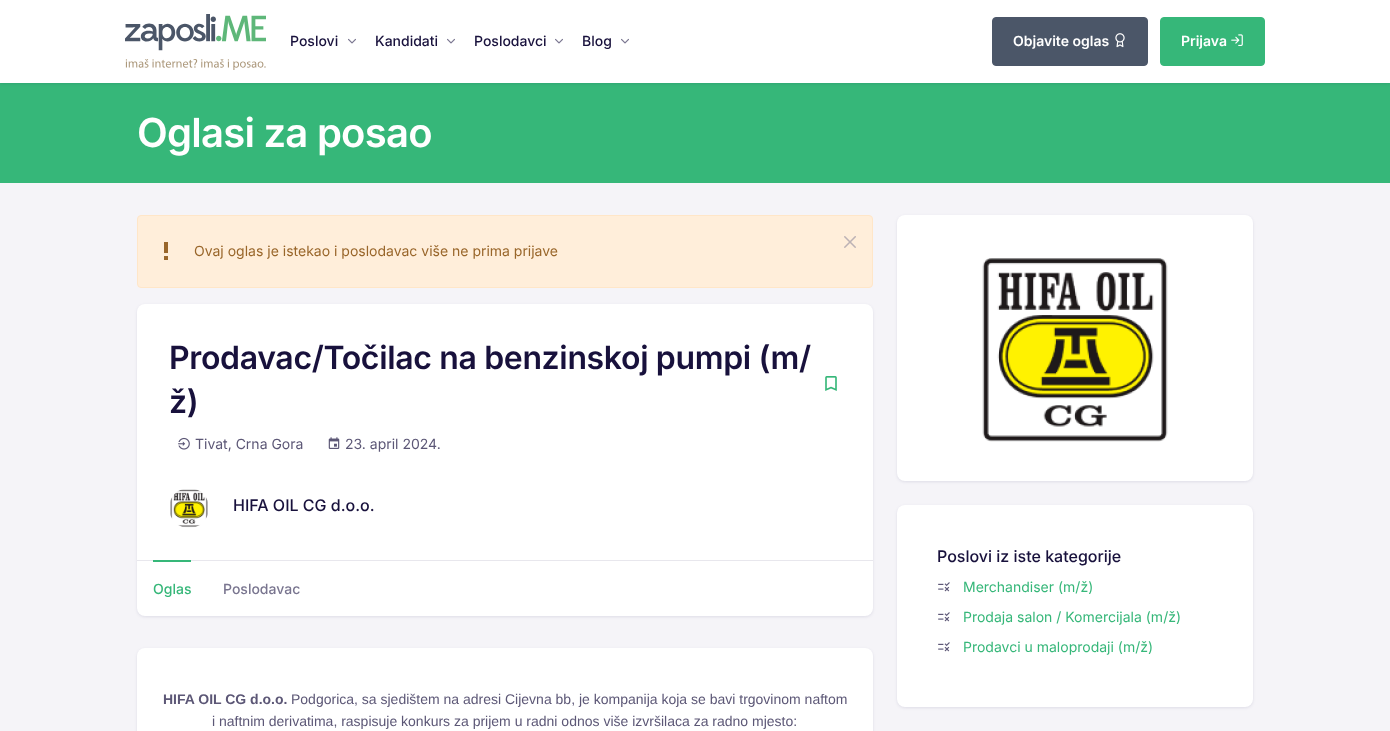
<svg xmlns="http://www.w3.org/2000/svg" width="1390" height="731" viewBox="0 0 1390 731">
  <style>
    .t1 { font: 500 14px Inter; fill: #18113c; }
    .t2 { font: 600 14px Inter; fill: #fff; }
    .t3 { font: 600 40px Inter; letter-spacing: -0.75px; fill: #fff; }
    .t4 { font: 14px Inter; fill: #99662a; }
    .t5 { font: 600 32px Inter; letter-spacing: -0.35px; fill: #18113c; }
    .t6 { font: 14px Inter; fill: #5c5776; }
    .t7 { font: 500 16px Inter; fill: #18113c; }
    .t8 { font: 500 14px Inter; fill: #36b779; }
    .t9 { font: 500 14px Inter; fill: #79758f; }
    .t10 { font: bold 14px Liberation Sans; fill: #5c5776; }
    .t11 { font: 14px Liberation Sans; fill: #5c5776; }
    .t12 { font: 14px Inter; fill: #36b779; }
  </style>
  <rect width="100%" height="100%" fill="#f5f4f8"/>
  <rect x="0" y="83" width="1390" height="100" fill="#36b779"/>
  <rect x="0" y="1" width="1390" height="83" fill="#03004717" filter="blur(1.5px)"/>
  <rect x="0" y="0" width="1390" height="83" fill="#fff"/>
  <image x="125" y="14" width="141" height="56" href="images/1.png"/>
  <text x="290" y="46" class="t1">Poslovi</text>
  <image x="348" y="38" width="8" height="6" href="images/2.png"/>
  <text x="375" y="46" class="t1">Kandidati</text>
  <image x="447" y="38" width="8" height="6" href="images/2.png"/>
  <text x="474" y="46" class="t1">Poslodavci</text>
  <image x="555" y="38" width="8" height="6" href="images/2.png"/>
  <text x="582" y="46" class="t1">Blog</text>
  <image x="621" y="38" width="8" height="6" href="images/2.png"/>
  <rect x="992.5" y="17.5" width="155" height="48" rx="3.5" fill="#4b5668" stroke="#4b5668"/>
  <text x="1013" y="46" class="t2">Objavite oglas</text>
  <image x="1115" y="33" width="10" height="15" href="images/3.png"/>
  <rect x="1160.5" y="17.5" width="104" height="48" rx="3.5" fill="#36b779" stroke="#36b779"/>
  <text x="1181" y="46" class="t2">Prijava</text>
  <image x="1231" y="34" width="12" height="12" href="images/4.png"/>
  <text x="137" y="147" class="t3">Oglasi za posao</text>
  <rect x="137.5" y="215.5" width="735" height="72" rx="3.5" fill="#ffeeda" stroke="#ffe6c8"/>
  <image x="164" y="242" width="4" height="18" href="images/5.png"/>
  <text x="194" y="256" class="t4">Ovaj oglas je istekao i poslodavac više ne prima prijave</text>
  <image x="844" y="236" width="12" height="12" href="images/6.png"/>
  <rect x="137" y="305" width="736" height="312" rx="8" fill="#03004717" filter="blur(1.5px)"/>
  <rect x="137" y="304" width="736" height="312" rx="8" fill="#fff"/>
  <text x="169" y="369" class="t5">Prodavac/Točilac na benzinskoj pumpi (m/</text>
  <text x="169" y="413" class="t5">ž)</text>
  <image x="825" y="376" width="12" height="15" href="images/7.png"/>
  <image x="178" y="437" width="12" height="13" href="images/8.png"/>
  <text x="195" y="449" class="t6">Tivat, Crna Gora</text>
  <image x="328" y="437" width="12" height="12" href="images/9.png"/>
  <text x="345" y="449" class="t6">23. april 2024.</text>
  <image x="170" y="489" width="38" height="39" href="images/10.png"/>
  <text x="233" y="511" class="t7">HIFA OIL CG d.o.o.</text>
  <rect x="137" y="560" width="736" height="1" fill="#e8e7ed"/>
  <rect x="153" y="560" width="38" height="2" fill="#36b779"/>
  <text x="153" y="594" class="t8">Oglas</text>
  <text x="223" y="594" class="t9">Poslodavac</text>
  <rect x="137" y="649" width="736" height="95" rx="8" fill="#03004717" filter="blur(1.5px)"/>
  <rect x="137" y="648" width="736" height="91" rx="8" fill="#fff"/>
  <text x="163" y="704" class="t10">HIFA OIL CG d.o.o.</text>
  <text x="291" y="704" class="t11">Podgorica, sa sjedištem na adresi Cijevna bb, je kompanija koja se bavi trgovinom naftom</text>
  <text x="212" y="726" class="t11">i naftnim derivatima, raspisuje konkurs za prijem u radni odnos više izvršilaca za radno mjesto:</text>
  <rect x="897" y="216" width="356" height="266" rx="8" fill="#03004717" filter="blur(1.5px)"/>
  <rect x="897" y="215" width="356" height="266" rx="8" fill="#fff"/>
  <image x="982" y="258" width="186" height="184" href="images/11.png"/>
  <rect x="897" y="506" width="356" height="202" rx="8" fill="#03004717" filter="blur(1.5px)"/>
  <rect x="897" y="505" width="356" height="202" rx="8" fill="#fff"/>
  <text x="937" y="562" class="t7">Poslovi iz iste kategorije</text>
  <image x="938" y="582" width="12" height="10" href="images/12.png"/>
  <text x="963" y="592" class="t12">Merchandiser (m/ž)</text>
  <image x="938" y="612" width="12" height="10" href="images/12.png"/>
  <text x="963" y="622" class="t12">Prodaja salon / Komercijala (m/ž)</text>
  <image x="938" y="642" width="12" height="10" href="images/12.png"/>
  <text x="963" y="652" class="t12">Prodavci u maloprodaji (m/ž)</text>
</svg>
